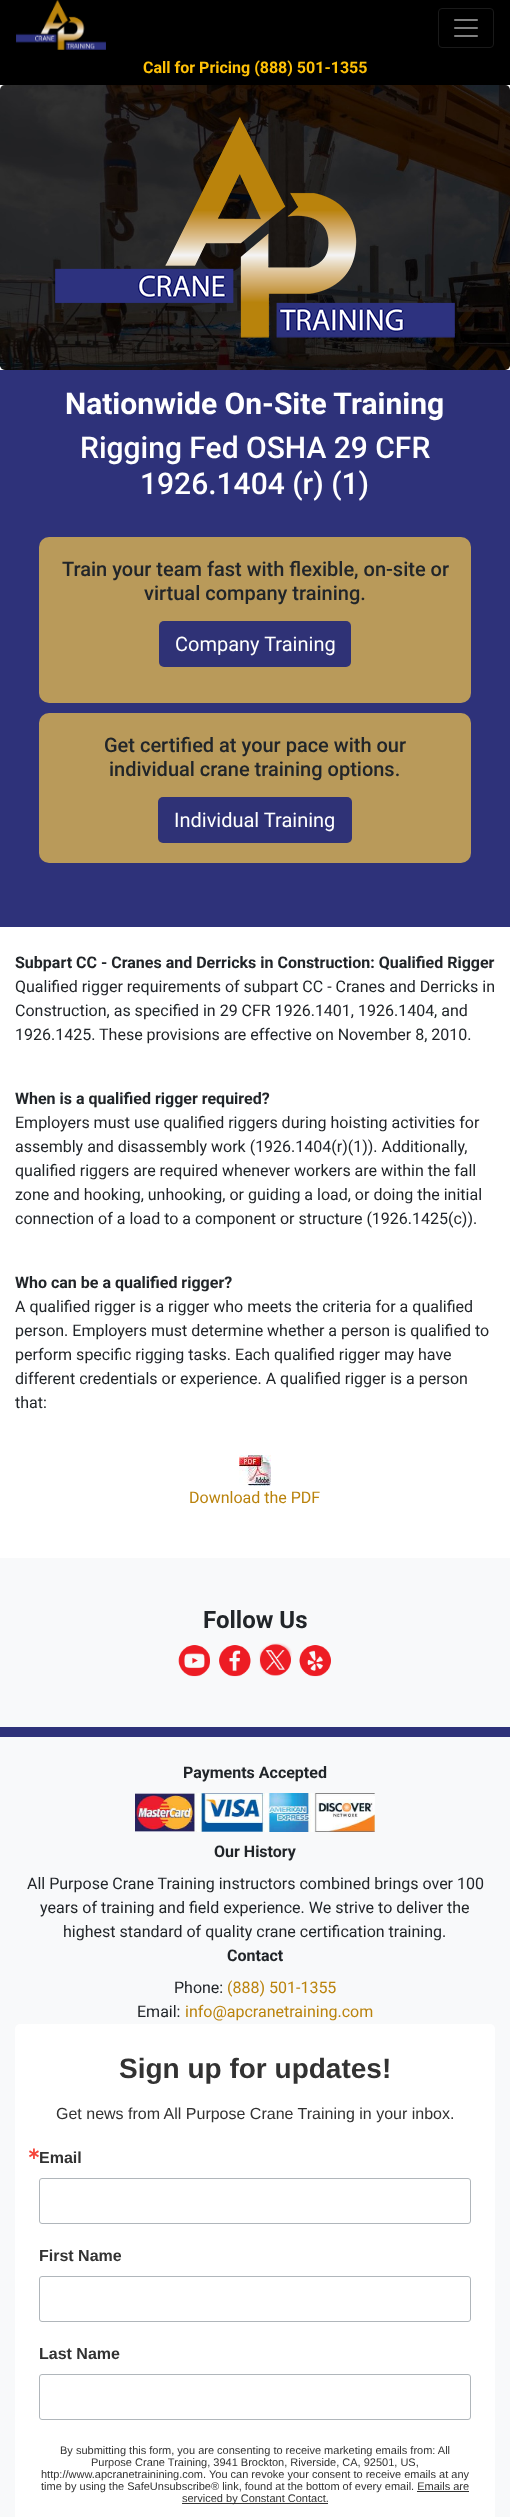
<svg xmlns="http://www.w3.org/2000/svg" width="510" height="2517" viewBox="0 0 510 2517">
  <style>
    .t1 { font: bold 16px Roboto; fill: #ffc107; }
    .t2 { font: bold 30px Roboto; fill: #fff; }
    .t3 { font: 500 30px Roboto; fill: #fff; }
    .t4 { font: 500 20px Roboto; fill: #212529; }
    .t5 { font: 20px Roboto; fill: #fff; }
    .t6 { font: bold 16px Roboto; fill: #212529; }
    .t7 { font: 16px Roboto; fill: #212529; }
    .t8 { font: 16px Roboto; fill: #ba830d; }
    .t9 { font: bold 24px Roboto; fill: #212529; }
    .t10 { font: bold 28px Liberation Sans; fill: #323232; }
    .t11 { font: 16px Liberation Sans; fill: #323232; }
    .t12 { font: bold 16px DejaVu Sans; fill: #f5463b; }
    .t13 { font: bold 16px Liberation Sans; fill: #323232; }
    .t14 { font: 11px Liberation Sans; fill: #323232; }
  </style>
  <rect width="100%" height="100%" fill="#fff"/>
  <rect x="0" y="0" width="510" height="85" fill="#000"/>
  <image x="16" y="0" width="90" height="50" href="images/1.png"/>
  <rect x="438.5" y="8.5" width="55" height="39" rx="3.5" fill="none" stroke="#1a1a1a"/>
  <image x="454" y="19" width="24" height="18" href="images/2.png"/>
  <text x="143" y="73" class="t1">Call for Pricing (888) 501-1355</text>
  <image x="0" y="85" width="510" height="285" href="images/3.png"/>
  <image x="55" y="117" width="400" height="221" href="images/4.png"/>
  <rect x="0" y="370" width="510" height="557" fill="#2e327a"/>
  <text x="65" y="414" class="t2">Nationwide On-Site Training</text>
  <text x="80" y="458" class="t3">Rigging Fed OSHA 29 CFR</text>
  <text x="140" y="494" class="t3">1926.1404 (r) (1)</text>
  <rect x="39" y="537" width="432" height="166" rx="10" fill="#b99a5a"/>
  <text x="62" y="576" class="t4">Train your team fast with flexible, on-site or</text>
  <text x="144" y="600" class="t4">virtual company training.</text>
  <rect x="159" y="621" width="192" height="46" rx="5" fill="#2f3276"/>
  <text x="175" y="651" class="t5">Company Training</text>
  <rect x="39" y="713" width="432" height="150" rx="10" fill="#b99a5a"/>
  <text x="104" y="752" class="t4">Get certified at your pace with our</text>
  <text x="109" y="776" class="t4">individual crane training options.</text>
  <rect x="158" y="797" width="194" height="46" rx="5" fill="#2f3276"/>
  <text x="174" y="827" class="t5">Individual Training</text>
  <text x="15" y="968" class="t6">Subpart CC - Cranes and Derricks in Construction: Qualified Rigger</text>
  <text x="15" y="992" class="t7">Qualified rigger requirements of subpart CC - Cranes and Derricks in</text>
  <text x="15" y="1016" class="t7">Construction, as specified in 29 CFR 1926.1401, 1926.1404, and</text>
  <text x="15" y="1040" class="t7">1926.1425. These provisions are effective on November 8, 2010.</text>
  <text x="15" y="1104" class="t6">When is a qualified rigger required?</text>
  <text x="15" y="1128" class="t7">Employers must use qualified riggers during hoisting activities for</text>
  <text x="15" y="1152" class="t7">assembly and disassembly work (1926.1404(r)(1)). Additionally,</text>
  <text x="15" y="1176" class="t7">qualified riggers are required whenever workers are within the fall</text>
  <text x="15" y="1200" class="t7">zone and hooking, unhooking, or guiding a load, or doing the initial</text>
  <text x="15" y="1224" class="t7">connection of a load to a component or structure (1926.1425(c)).</text>
  <text x="15" y="1288" class="t6">Who can be a qualified rigger?</text>
  <text x="15" y="1312" class="t7">A qualified rigger is a rigger who meets the criteria for a qualified</text>
  <text x="15" y="1336" class="t7">person. Employers must determine whether a person is qualified to</text>
  <text x="15" y="1360" class="t7">perform specific rigging tasks. Each qualified rigger may have</text>
  <text x="15" y="1384" class="t7">different credentials or experience. A qualified rigger is a person</text>
  <text x="15" y="1408" class="t7">that:</text>
  <image x="239" y="1455" width="32" height="31" href="images/5.png"/>
  <text x="189" y="1503" class="t8">Download the PDF</text>
  <rect x="0" y="1558" width="510" height="169" fill="#f8f9fa"/>
  <text x="203" y="1628" class="t9">Follow Us</text>
  <image x="178" y="1645" width="32" height="32" href="images/6.png"/>
  <image x="219" y="1645" width="32" height="32" href="images/7.png"/>
  <image x="259" y="1643" width="33" height="33" href="images/8.png"/>
  <image x="299" y="1645" width="32" height="32" href="images/9.png"/>
  <rect x="0" y="1727" width="510" height="10" fill="#2e327a"/>
  <rect x="0" y="1737" width="510" height="780" fill="#f8f9fa"/>
  <text x="183" y="1778" class="t6">Payments Accepted</text>
  <image x="135" y="1793" width="240" height="39" href="images/10.png"/>
  <text x="214" y="1857" class="t6">Our History</text>
  <text x="27" y="1889" class="t7">All Purpose Crane Training instructors combined brings over 100</text>
  <text x="40" y="1913" class="t7">years of training and field experience. We strive to deliver the</text>
  <text x="63" y="1937" class="t7">highest standard of quality crane certification training.</text>
  <text x="227" y="1961" class="t6">Contact</text>
  <text x="174" y="1993" class="t7">Phone:</text>
  <text x="227" y="1993" class="t8">(888) 501-1355</text>
  <text x="137" y="2017" class="t7">Email:</text>
  <text x="185" y="2017" class="t8">info@apcranetraining.com</text>
  <rect x="15" y="2024" width="480" height="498" rx="5" fill="#fff"/>
  <text x="119" y="2078" class="t10">Sign up for updates!</text>
  <text x="56" y="2119" class="t11">Get news from All Purpose Crane Training in your inbox.</text>
  <text x="27" y="2159" class="t12">∗</text>
  <text x="39" y="2163" class="t13">Email</text>
  <rect x="39.5" y="2178.5" width="431" height="45" rx="2.5" fill="none" stroke="#b0b6bb"/>
  <text x="39" y="2261" class="t13">First Name</text>
  <rect x="39.5" y="2276.5" width="431" height="45" rx="2.5" fill="none" stroke="#b0b6bb"/>
  <text x="39" y="2359" class="t13">Last Name</text>
  <rect x="39.5" y="2374.5" width="431" height="45" rx="2.5" fill="none" stroke="#b0b6bb"/>
  <text x="60" y="2454" class="t14">By submitting this form, you are consenting to receive marketing emails from: All</text>
  <text x="91" y="2466" class="t14">Purpose Crane Training, 3941 Brockton, Riverside, CA, 92501, US,</text>
  <text x="41" y="2478" class="t14">http://www.apcranetrainining.com. You can revoke your consent to receive emails at any</text>
  <text x="41" y="2490" class="t14">time by using the SafeUnsubscribe® link, found at the bottom of every email. Emails are</text>
  <rect x="182" y="2503" width="146" height="1" fill="#323232"/>
  <text x="182" y="2502" class="t14">serviced by Constant Contact.</text>
  <rect x="417" y="2491" width="52" height="1" fill="#323232"/>
</svg>
